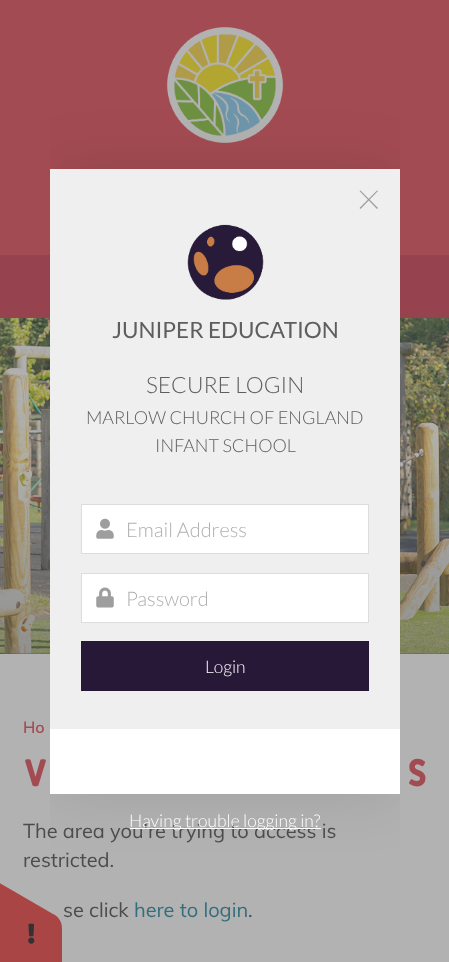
<svg xmlns="http://www.w3.org/2000/svg" width="449" height="962" viewBox="0 0 449 962">
  <style>
    .t1 { font: 22.5px Lato; fill: #5e5e5e; }
    .t2 { font: 300 22.5px Lato; fill: #5e5e5e; }
    .t3 { font: 300 18px Lato; fill: #5e5e5e; }
    .t4 { font: 300 20px Lato; fill: #afafaf; }
    .t5 { font: 300 17.5px Lato; fill: #fff; }
    .t6 { font: 20px Muli; fill: #4c4c4c; }
    .t7 { font: 600 16px Muli; fill: #a34b52; }
    .t8 { font: 900 38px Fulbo; fill: #a34b52; }
    .t9 { font: 20px Muli; fill: #326e7c; }
  </style>
  <defs>
    <linearGradient id="g1" gradientUnits="userSpaceOnUse" x1="305" y1="265" x2="145" y2="706"><stop offset="0" stop-color="#a86c71"/><stop offset="1" stop-color="#a34b52"/></linearGradient>
    <linearGradient id="g2" gradientUnits="userSpaceOnUse" x1="225" y1="654" x2="225" y2="451"><stop offset="0" stop-color="#323232" stop-opacity="0.25"/><stop offset="1" stop-color="#323232" stop-opacity="0"/></linearGradient>
    <clipPath id="clip1"><rect x="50" y="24" width="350" height="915"/></clipPath>
  </defs>
  <rect width="100%" height="100%" fill="#b2b2b2"/>
  <rect x="0" y="0" width="449" height="255" fill="#a34b52"/>
  <image x="166" y="26" width="118" height="118" href="images/4.png"/>
  <rect x="0" y="255" width="449" height="63" fill="#97424f"/>
  <rect x="0" y="653" width="449" height="1" fill="url(#g1)"/>
  <image x="0" y="318" width="449" height="336" href="images/5.png"/>
  <rect x="0" y="469" width="449" height="185" fill="url(#g2)"/>
  <path d="M62 929V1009C62 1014 60 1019 57 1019H-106C-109 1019-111 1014-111 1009V929C-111 923-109 919-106 919H57C60 919 62 923 62 929Z" fill="#aa4545"/>
  <path d="M-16 874L53 914C58 916 61 921 60 923L-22 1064C-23 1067-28 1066-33 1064L-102 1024C-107 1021-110 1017-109 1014L-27 873C-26 871-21 871-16 874Z" fill="#aa4545"/>
  <g clip-path="url(#clip1)">
    <rect x="50" y="169" width="350" height="625" fill="#0000001a" filter="blur(31px)"/>
  </g>
  <rect x="50" y="169" width="350" height="560" fill="#efefef"/>
  <path d="M360.5 190.5L378 208L377 209L359.5 191Z" fill="#9e9e9e"/>
  <path d="M378 191L360.5 209L359.5 208L377 190.5Z" fill="#9e9e9e"/>
  <image x="187" y="224" width="77" height="76" href="images/1.png"/>
  <text x="112" y="338" class="t1">JUNIPER EDUCATION</text>
  <text x="146" y="393" class="t2">SECURE LOGIN</text>
  <text x="86" y="424" class="t3">MARLOW CHURCH OF ENGLAND</text>
  <text x="155" y="452" class="t3">INFANT SCHOOL</text>
  <rect x="81.5" y="504.5" width="287" height="49" fill="#fff" stroke="#ddd"/>
  <image x="96" y="518" width="18" height="21" href="images/2.png"/>
  <text x="126" y="537" class="t4">Email Address</text>
  <rect x="81.5" y="573.5" width="287" height="49" fill="#fff" stroke="#ddd"/>
  <image x="96" y="587" width="18" height="21" href="images/3.png"/>
  <text x="126" y="606" class="t4">Password</text>
  <rect x="81.5" y="641.5" width="287" height="49" fill="#281838" stroke="#261735"/>
  <text x="205" y="673" class="t5">Login</text>
  <rect x="50" y="729" width="350" height="65" fill="#fff"/>
  <text x="23" y="838" class="t6">The area you're trying to access is</text>
  <rect x="130" y="828" width="191" height="1" fill="#fff"/>
  <text x="129" y="827" class="t5">Having trouble logging in?</text>
  <text x="23" y="733" class="t7">Ho</text>
  <text x="23" y="786" class="t8">V</text>
  <text x="407" y="786" class="t8">S</text>
  <text x="23" y="867" class="t6">restricted.</text>
  <text x="63" y="917" class="t6">se click</text>
  <text x="134" y="917" class="t9">here to login</text>
  <text x="248" y="917" class="t6">.</text>
  <image x="28" y="923" width="7" height="21" href="images/6.png"/>
</svg>
